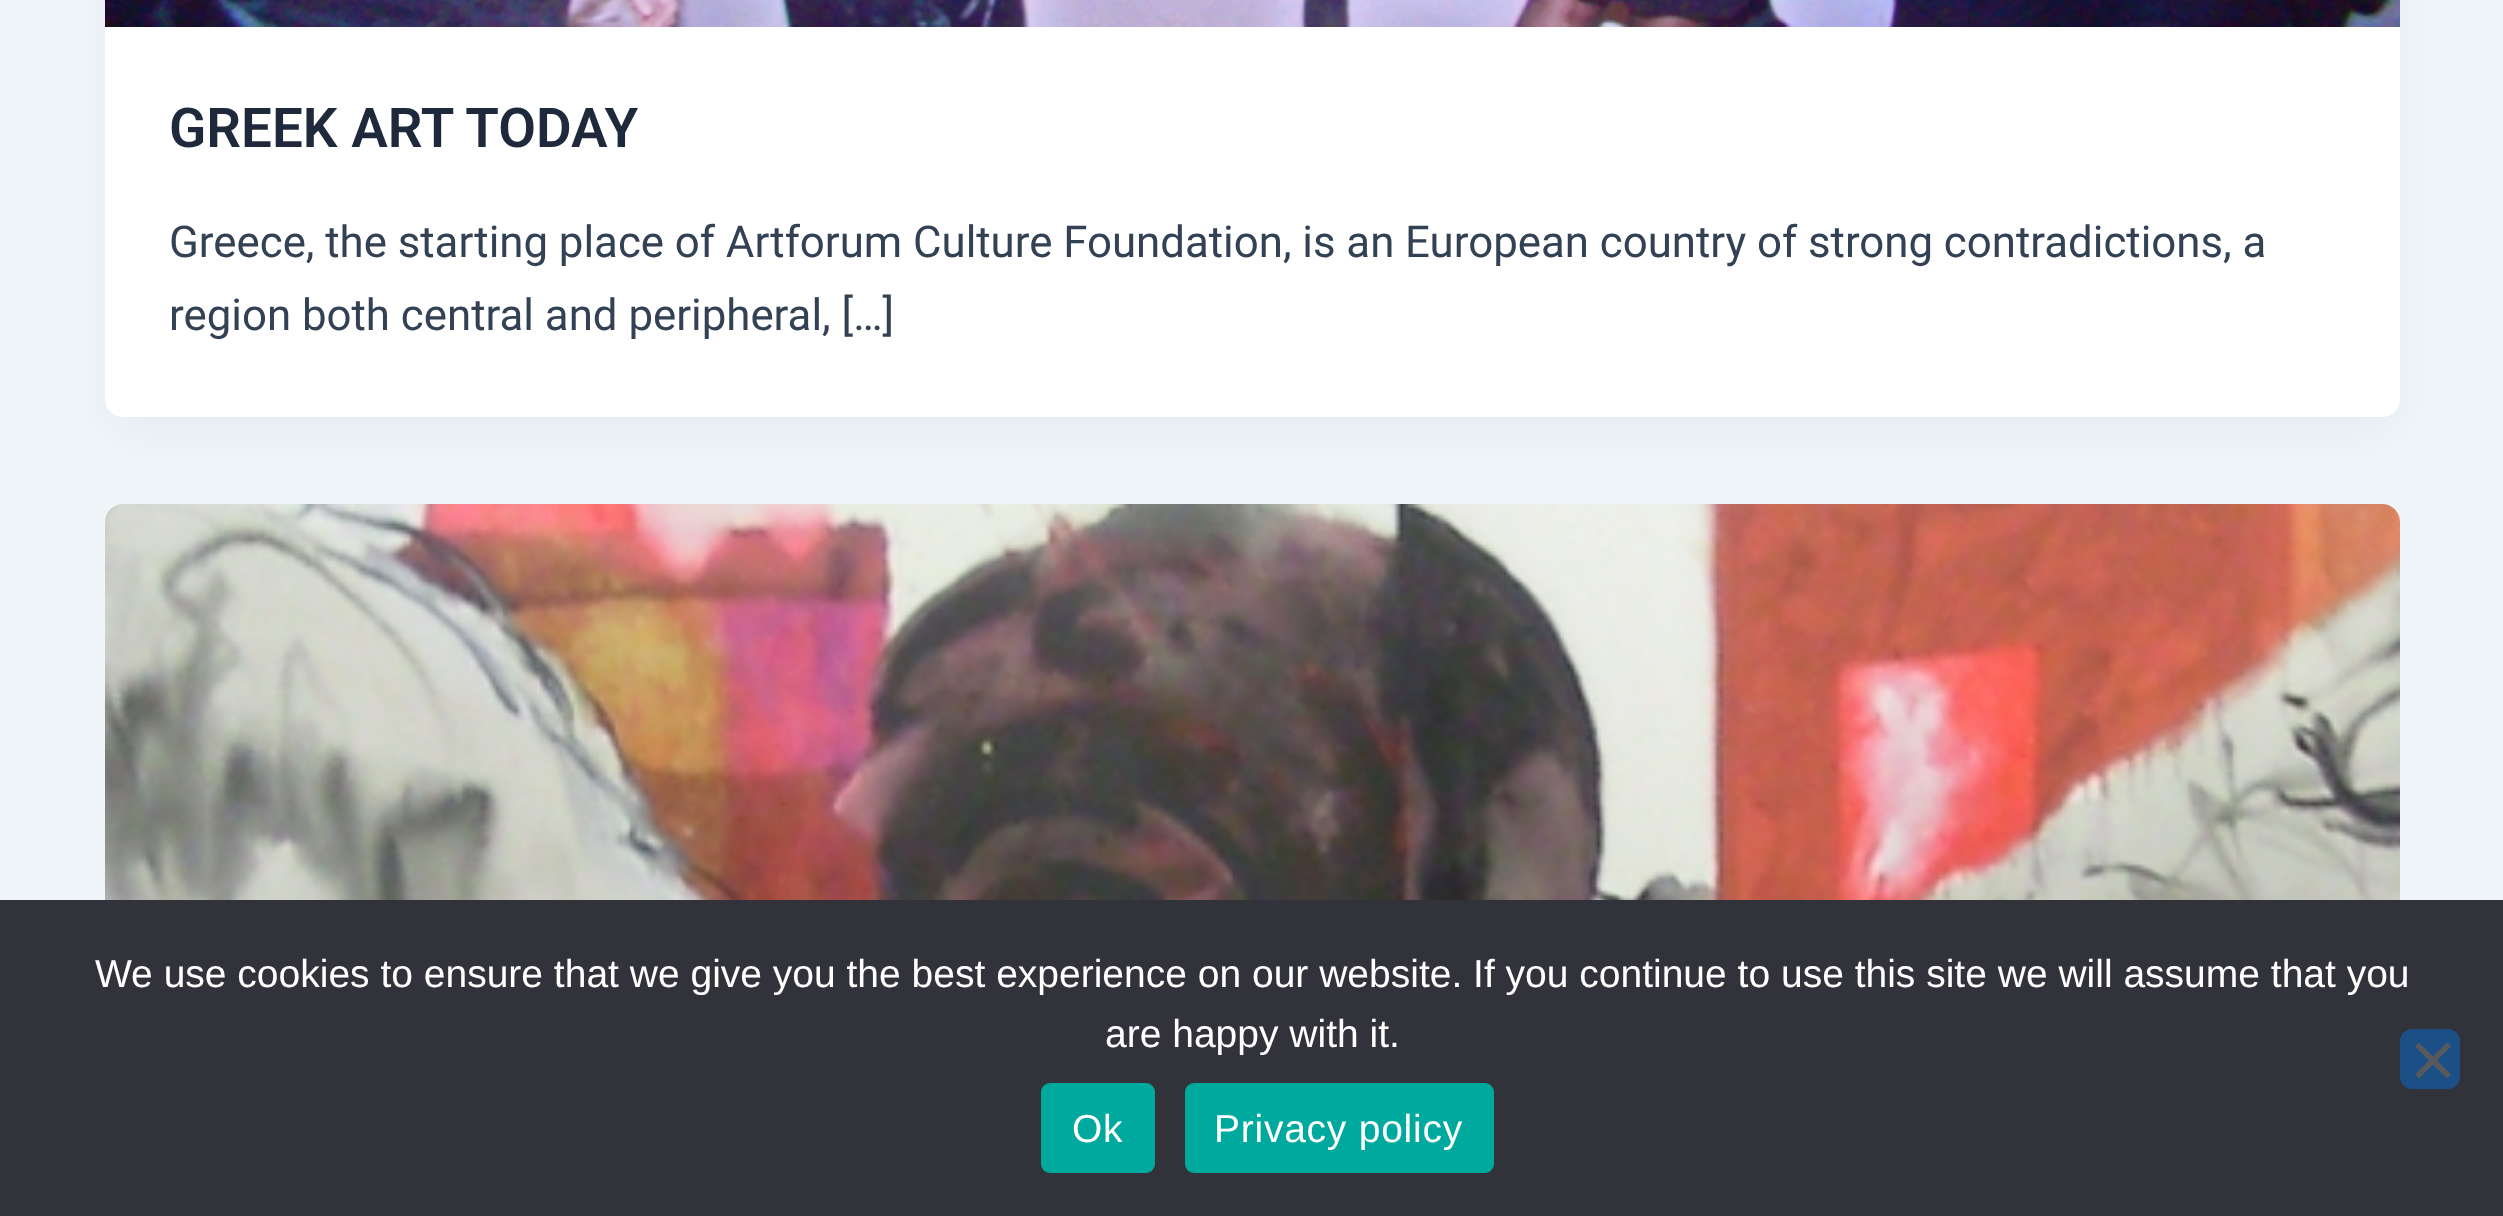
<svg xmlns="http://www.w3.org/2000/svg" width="2503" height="1216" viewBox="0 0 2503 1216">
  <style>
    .t1 { font: 600 54.75px Roboto; fill: #1e293b; }
    .t2 { font: 43.8px Roboto; fill: #334155; }
    .t3 { font: 39px Liberation Sans; fill: #fff; }
    .t4 { font: 39px Liberation Sans; letter-spacing: 0.75px; fill: #fff; }
  </style>
  <rect width="100%" height="100%" fill="#f0f5fa"/>
  <rect x="111" y="-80" width="2283" height="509" rx="12" fill="#1018280d" filter="blur(22.5px)"/>
  <rect x="105" y="-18" width="2295" height="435" rx="18" fill="#fff"/>
  <image x="105" y="0" width="2295" height="27" href="images/1.png"/>
  <text x="169" y="147" class="t1">GREEK ART TODAY</text>
  <text x="169" y="257" word-spacing="-0.1" class="t2">Greece, the starting place of Artforum Culture Foundation, is an European country of strong contradictions, a</text>
  <text x="169" y="330" class="t2">region both central and peripheral, […]</text>
  <image x="105" y="504" width="2295" height="396" href="images/2.png"/>
  <rect x="0" y="900" width="2503" height="316" fill="#32323a"/>
  <text x="95" y="987" class="t3">We use cookies to ensure that we give you the best experience on our website. If you continue to use this site we will assume that you</text>
  <text x="1105" y="1047" class="t3">are happy with it.</text>
  <rect x="2400" y="1029" width="60" height="60" rx="12" fill="#1b4f86"/>
  <path d="M2447 1042.5L2451 1046.5L2419 1078.5L2415 1074.5Z" fill="#59595d"/>
  <path d="M2415 1046.5L2419 1042.5L2451 1074.5L2447 1078.5Z" fill="#59595d"/>
  <rect x="1041" y="1083" width="114" height="90" rx="9" fill="#00a99d"/>
  <text x="1072" y="1142" class="t4">Ok</text>
  <rect x="1185" y="1083" width="309" height="90" rx="9" fill="#00a99d"/>
  <text x="1214" y="1142" class="t4">Privacy policy</text>
</svg>
